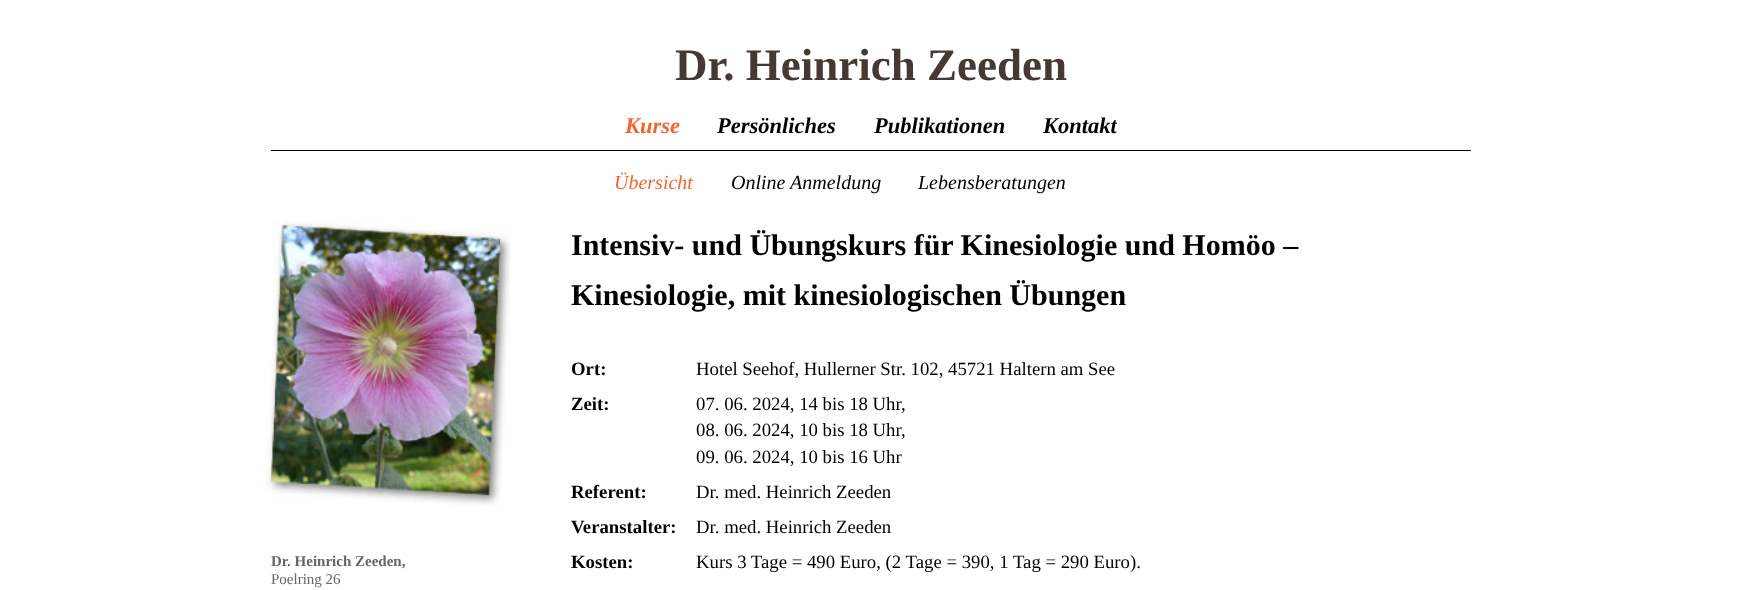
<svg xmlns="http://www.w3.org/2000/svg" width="1741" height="590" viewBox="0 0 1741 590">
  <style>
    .t1 { font: bold 45px Liberation Serif; fill: #463833; }
    .t2 { font: italic bold 22.5px Liberation Serif; fill: #000; }
    .t3 { font: italic bold 22.5px Liberation Serif; fill: #f16630; }
    .t4 { font: italic 20px Liberation Serif; fill: #f16630; }
    .t5 { font: italic 20px Liberation Serif; fill: #000; }
    .t6 { font: bold 15px Liberation Serif; fill: #666; }
    .t7 { font: 15px Liberation Serif; fill: #666; }
    .t8 { font: bold 30px Liberation Serif; fill: #000; }
    .t9 { font: bold 18.75px Liberation Serif; fill: #000; }
    .t10 { font: 18.75px Liberation Serif; fill: #000; }
  </style>
  <rect width="100%" height="100%" fill="#fff"/>
  <text x="675" y="80" class="t1">Dr. Heinrich Zeeden</text>
  <rect x="271" y="150" width="1200" height="1" fill="#000"/>
  <text x="717" y="133" class="t2">Persönliches</text>
  <text x="874" y="133" class="t2">Publikationen</text>
  <text x="1043" y="133" class="t2">Kontakt</text>
  <text x="625" y="133" class="t3">Kurse</text>
  <text x="614" y="189" class="t4">Übersicht</text>
  <text x="731" y="189" class="t5">Online Anmeldung</text>
  <text x="918" y="189" class="t5">Lebensberatungen</text>
  <image x="263" y="220" width="248" height="286" href="images/1.png"/>
  <text x="271" y="566" class="t6">Dr. Heinrich Zeeden,</text>
  <text x="271" y="584" class="t7">Poelring 26</text>
  <text x="571" y="255" class="t8">Intensiv- und Übungskurs für Kinesiologie und Homöo –</text>
  <text x="571" y="305" class="t8">Kinesiologie, mit kinesiologischen Übungen</text>
  <text x="571" y="375" class="t9">Ort:</text>
  <text x="696" y="375" class="t10">Hotel Seehof, Hullerner Str. 102, 45721 Haltern am See</text>
  <text x="571" y="410" class="t9">Zeit:</text>
  <text x="696" y="410" class="t10">07. 06. 2024, 14 bis 18 Uhr,</text>
  <text x="696" y="436" class="t10">08. 06. 2024, 10 bis 18 Uhr,</text>
  <text x="696" y="463" class="t10">09. 06. 2024, 10 bis 16 Uhr</text>
  <text x="571" y="498" class="t9">Referent:</text>
  <text x="696" y="498" class="t10">Dr. med. Heinrich Zeeden</text>
  <text x="571" y="533" class="t9">Veranstalter:</text>
  <text x="696" y="533" class="t10">Dr. med. Heinrich Zeeden</text>
  <text x="571" y="568" class="t9">Kosten:</text>
  <text x="696" y="568" class="t10">Kurs 3 Tage = 490 Euro, (2 Tage = 390, 1 Tag = 290 Euro).</text>
</svg>
